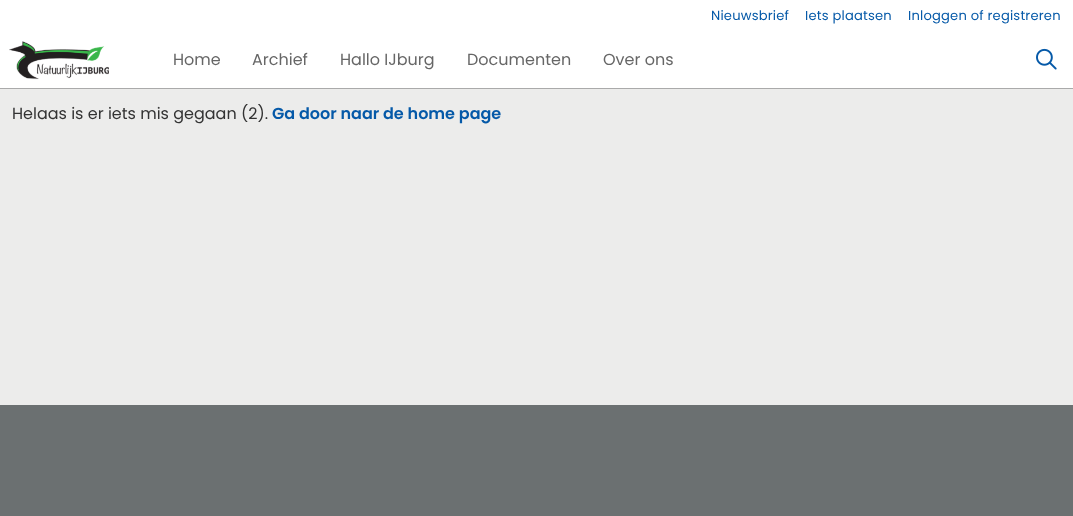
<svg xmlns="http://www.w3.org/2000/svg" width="1073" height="516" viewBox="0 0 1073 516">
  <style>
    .t1 { font: 13.1px Poppins; letter-spacing: 0.2px; fill: #0559a8; }
    .t2 { font: 16px Poppins; fill: #666; }
    .t3 { font: 16px Poppins; fill: #333; }
    .t4 { font: 600 16px Poppins; fill: #0559a8; }
  </style>
  <rect width="100%" height="100%" fill="#ececeb"/>
  <rect x="0" y="0" width="1073" height="88" fill="#fff"/>
  <text x="711" y="20" class="t1">Nieuwsbrief</text>
  <text x="805" y="20" class="t1">Iets plaatsen</text>
  <text x="908" y="20" class="t1">Inloggen of registreren</text>
  <rect x="0" y="88" width="1073" height="1" fill="#aaa"/>
  <image x="9" y="41" width="100" height="39" href="images/1.png"/>
  <text x="173" y="65" class="t2">Home</text>
  <text x="252" y="65" class="t2">Archief</text>
  <text x="340" y="65" class="t2">Hallo IJburg</text>
  <text x="467" y="65" class="t2">Documenten</text>
  <text x="603" y="65" class="t2">Over ons</text>
  <image x="1036" y="48" width="21" height="22" href="images/2.png"/>
  <text x="12" y="119" class="t3">Helaas is er iets mis gegaan (2).</text>
  <text x="272" y="119" class="t4">Ga door naar de home page</text>
  <rect x="0" y="405" width="1073" height="111" fill="#6b7071"/>
</svg>
